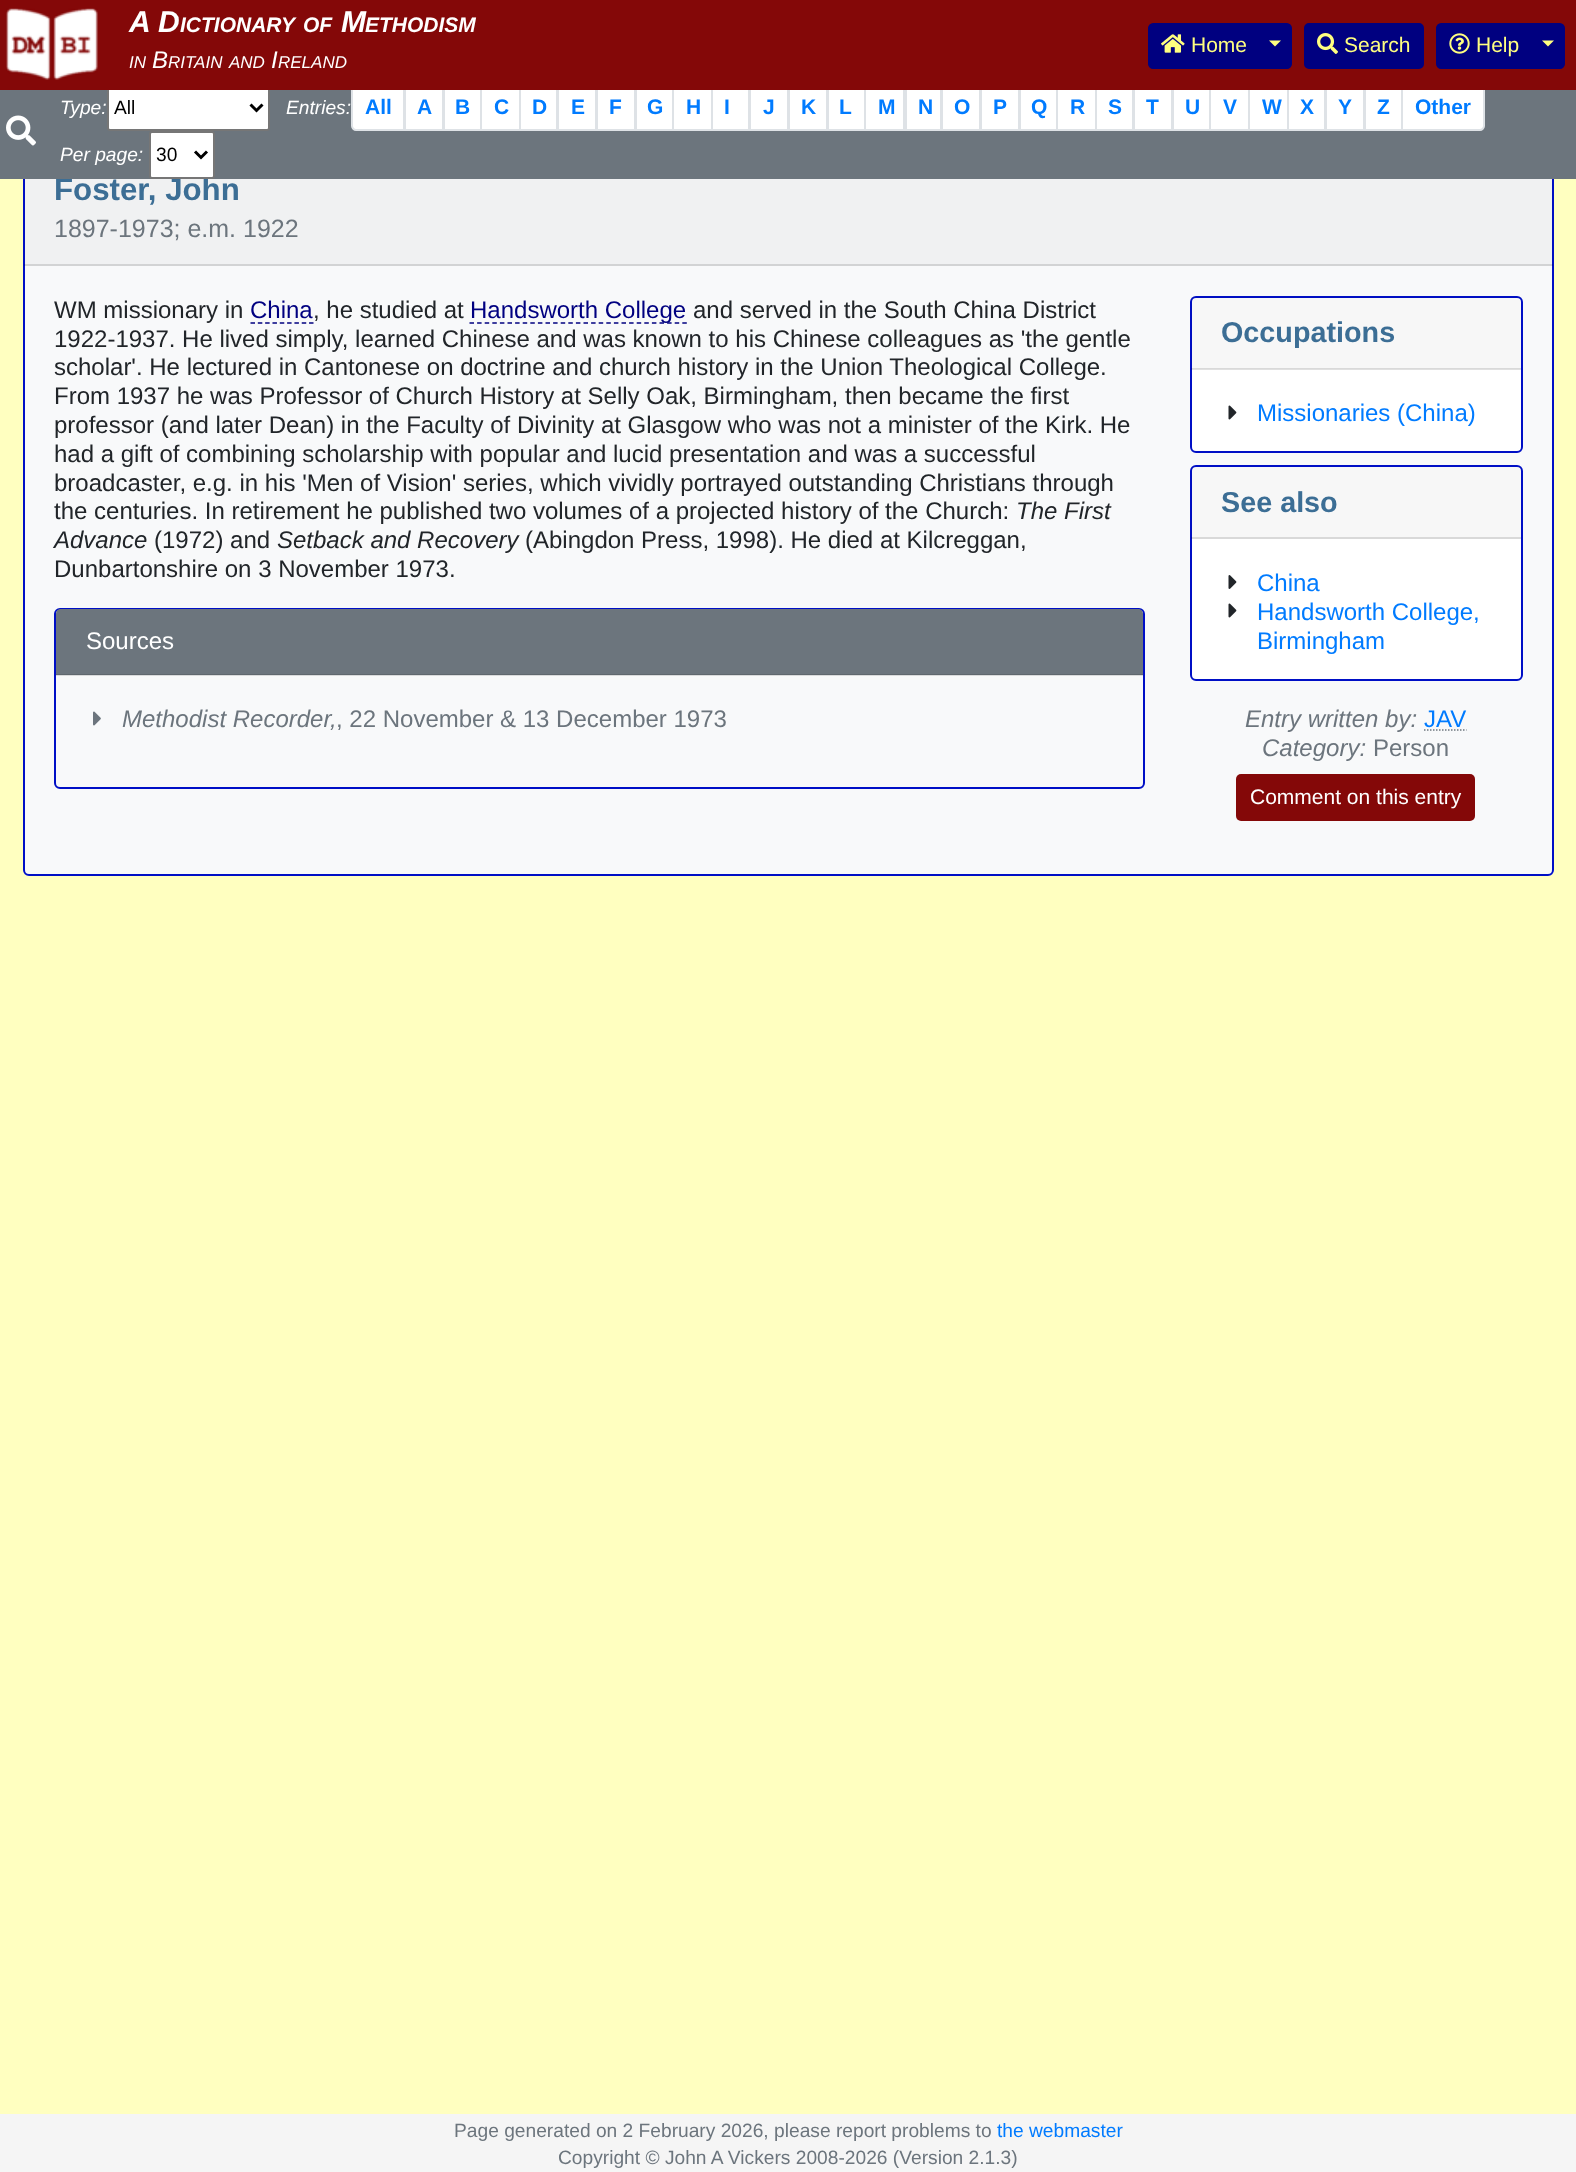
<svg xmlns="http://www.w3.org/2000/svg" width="1576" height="2172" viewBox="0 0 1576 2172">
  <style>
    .t1 { font: bold 31.25px Liberation Sans; fill: #3c6e95; }
    .t2 { font: italic bold 30px Liberation Sans; fill: #fff; }
    .t3 { font: italic bold 21px Liberation Sans; fill: #fff; }
    .t4 { font: italic 17px Liberation Sans; fill: #fff; }
    .t5 { font: italic 24px Liberation Sans; fill: #fff; }
    .t6 { font: 21px Liberation Sans; fill: #ffff80; }
    .t7 { font: italic 19.2px Liberation Sans; fill: #fff; }
    .t8 { font: 19.2px Liberation Sans; fill: #000; }
    .t9 { font: bold 21px Liberation Sans; fill: #007bff; }
    .t10 { font: 25px Liberation Sans; fill: #6c757d; }
    .t11 { font: 24px Liberation Sans; fill: #212529; }
    .t12 { font: 24px Liberation Sans; fill: #000080; }
    .t13 { font: italic 24px Liberation Sans; fill: #212529; }
    .t14 { font: 24px Liberation Sans; fill: #fff; }
    .t15 { font: italic 24px Liberation Sans; fill: #6c757d; }
    .t16 { font: 24px Liberation Sans; fill: #6c757d; }
    .t17 { font: bold 28.75px Liberation Sans; fill: #3c6e95; }
    .t18 { font: 24px Liberation Sans; fill: #007bff; }
    .t19 { font: 21px Liberation Sans; fill: #fff; }
    .t20 { font: 19.2px Liberation Sans; fill: #6c757d; }
    .t21 { font: 19.2px Liberation Sans; fill: #007bff; }
  </style>
  <rect width="100%" height="100%" fill="#ffffc0"/>
  <rect x="23" y="152" width="1531" height="724" rx="6" fill="#f8f9fa"/>
  <rect x="56" y="675" width="1087" height="1" fill="#dadbdc"/>
  <rect x="24" y="153" width="1529" height="722" rx="5" fill="none" stroke="#000fc6" stroke-width="2"/>
  <rect x="24" y="179" width="1529" height="87" fill="#00000008"/>
  <text x="54" y="200" class="t1">Foster, John</text>
  <rect x="0" y="90" width="1576" height="89" fill="#6c757d"/>
  <rect x="108" y="85" width="161" height="45" rx="2" fill="#fff" stroke="#767676" stroke-width="2"/>
  <path d="M356 85H404V130H356C354 130 352 128 352 126V89C352 87 354 85 356 85Z" fill="#fff" stroke="#dee2e6" stroke-width="2"/>
  <rect x="406" y="90" width="36" height="39" fill="#fff"/>
  <rect x="405" y="85" width="38" height="45" fill="none" stroke="#dee2e6" stroke-width="2"/>
  <rect x="445" y="90" width="35" height="39" fill="#fff"/>
  <rect x="444" y="85" width="37" height="45" fill="none" stroke="#dee2e6" stroke-width="2"/>
  <rect x="482" y="90" width="37" height="39" fill="#fff"/>
  <rect x="481" y="85" width="39" height="45" fill="none" stroke="#dee2e6" stroke-width="2"/>
  <rect x="521" y="90" width="35" height="39" fill="#fff"/>
  <rect x="520" y="85" width="37" height="45" fill="none" stroke="#dee2e6" stroke-width="2"/>
  <rect x="559" y="90" width="36" height="39" fill="#fff"/>
  <rect x="558" y="85" width="38" height="45" fill="none" stroke="#dee2e6" stroke-width="2"/>
  <rect x="598" y="90" width="36" height="39" fill="#fff"/>
  <rect x="597" y="85" width="38" height="45" fill="none" stroke="#dee2e6" stroke-width="2"/>
  <rect x="637" y="90" width="35" height="39" fill="#fff"/>
  <rect x="636" y="85" width="37" height="45" fill="none" stroke="#dee2e6" stroke-width="2"/>
  <rect x="674" y="90" width="37" height="39" fill="#fff"/>
  <rect x="673" y="85" width="39" height="45" fill="none" stroke="#dee2e6" stroke-width="2"/>
  <rect x="713" y="90" width="35" height="39" fill="#fff"/>
  <rect x="712" y="85" width="37" height="45" fill="none" stroke="#dee2e6" stroke-width="2"/>
  <rect x="751" y="90" width="36" height="39" fill="#fff"/>
  <rect x="750" y="85" width="38" height="45" fill="none" stroke="#dee2e6" stroke-width="2"/>
  <rect x="790" y="90" width="36" height="39" fill="#fff"/>
  <rect x="789" y="85" width="38" height="45" fill="none" stroke="#dee2e6" stroke-width="2"/>
  <rect x="829" y="90" width="35" height="39" fill="#fff"/>
  <rect x="828" y="85" width="37" height="45" fill="none" stroke="#dee2e6" stroke-width="2"/>
  <rect x="866" y="90" width="37" height="39" fill="#fff"/>
  <rect x="865" y="85" width="39" height="45" fill="none" stroke="#dee2e6" stroke-width="2"/>
  <rect x="907" y="90" width="33" height="39" fill="#fff"/>
  <rect x="906" y="85" width="35" height="45" fill="none" stroke="#dee2e6" stroke-width="2"/>
  <rect x="943" y="90" width="36" height="39" fill="#fff"/>
  <rect x="942" y="85" width="38" height="45" fill="none" stroke="#dee2e6" stroke-width="2"/>
  <rect x="982" y="90" width="36" height="39" fill="#fff"/>
  <rect x="981" y="85" width="38" height="45" fill="none" stroke="#dee2e6" stroke-width="2"/>
  <rect x="1021" y="90" width="35" height="39" fill="#fff"/>
  <rect x="1020" y="85" width="37" height="45" fill="none" stroke="#dee2e6" stroke-width="2"/>
  <rect x="1058" y="90" width="37" height="39" fill="#fff"/>
  <rect x="1057" y="85" width="39" height="45" fill="none" stroke="#dee2e6" stroke-width="2"/>
  <rect x="1097" y="90" width="35" height="39" fill="#fff"/>
  <rect x="1096" y="85" width="37" height="45" fill="none" stroke="#dee2e6" stroke-width="2"/>
  <rect x="1135" y="90" width="36" height="39" fill="#fff"/>
  <rect x="1134" y="85" width="38" height="45" fill="none" stroke="#dee2e6" stroke-width="2"/>
  <rect x="1174" y="90" width="35" height="39" fill="#fff"/>
  <rect x="1173" y="85" width="37" height="45" fill="none" stroke="#dee2e6" stroke-width="2"/>
  <rect x="1211" y="90" width="37" height="39" fill="#fff"/>
  <rect x="1210" y="85" width="39" height="45" fill="none" stroke="#dee2e6" stroke-width="2"/>
  <rect x="1250" y="90" width="37" height="39" fill="#fff"/>
  <rect x="1249" y="85" width="39" height="45" fill="none" stroke="#dee2e6" stroke-width="2"/>
  <rect x="1289" y="90" width="35" height="39" fill="#fff"/>
  <rect x="1288" y="85" width="37" height="45" fill="none" stroke="#dee2e6" stroke-width="2"/>
  <rect x="1327" y="90" width="36" height="39" fill="#fff"/>
  <rect x="1326" y="85" width="38" height="45" fill="none" stroke="#dee2e6" stroke-width="2"/>
  <rect x="1366" y="90" width="35" height="39" fill="#fff"/>
  <rect x="1365" y="85" width="37" height="45" fill="none" stroke="#dee2e6" stroke-width="2"/>
  <path d="M1402 85H1480C1482 85 1484 87 1484 89V126C1484 128 1482 130 1480 130H1402Z" fill="#fff" stroke="#dee2e6" stroke-width="2"/>
  <rect x="0" y="0" width="1576" height="90" fill="#840808"/>
  <image x="6" y="8" width="92" height="72" href="images/1.png"/>
  <text x="129" y="32" class="t2">A D</text>
  <text x="180" y="32" class="t3">ICTIONARY</text>
  <text x="303" y="32" class="t3">OF</text>
  <text x="341" y="32" class="t2">M</text>
  <text x="365" y="32" class="t3">ETHODISM</text>
  <text x="129" y="68" class="t4">IN</text>
  <text x="152" y="68" class="t5">B</text>
  <text x="168" y="68" class="t4">RITAIN</text>
  <text x="229" y="68" class="t4">AND</text>
  <text x="271" y="68" class="t5">I</text>
  <text x="278" y="68" class="t4">RELAND</text>
  <path d="M1153 24H1259V68H1153C1151 68 1149 66 1149 64V28C1149 26 1151 24 1153 24Z" fill="#000080" stroke="#000080" stroke-width="2"/>
  <image x="1161" y="34" width="24" height="19" href="images/2.png"/>
  <text x="1191" y="52" class="t6">Home</text>
  <path d="M1260 24H1287C1289 24 1291 26 1291 28V64C1291 66 1289 68 1287 68H1260Z" fill="#000080" stroke="#000080" stroke-width="2"/>
  <path d="M1269 40.5H1281L1275 46.5Z" fill="#ffff80"/>
  <rect x="1305" y="24" width="118" height="44" rx="4" fill="#000080" stroke="#000080" stroke-width="2"/>
  <image x="1317" y="33" width="21" height="21" href="images/3.png"/>
  <text x="1344" y="52" class="t6">Search</text>
  <path d="M1441 24H1532V68H1441C1439 68 1437 66 1437 64V28C1437 26 1439 24 1441 24Z" fill="#000080" stroke="#000080" stroke-width="2"/>
  <image x="1449" y="33" width="21" height="21" href="images/4.png"/>
  <text x="1476" y="52" class="t6">Help</text>
  <path d="M1533 24H1560C1562 24 1564 26 1564 28V64C1564 66 1562 68 1560 68H1533Z" fill="#000080" stroke="#000080" stroke-width="2"/>
  <path d="M1542 40.5H1554L1548 46.5Z" fill="#ffff80"/>
  <image x="6" y="115" width="30" height="31" href="images/5.png"/>
  <text x="60" y="114" class="t7">Type:</text>
  <path d="M250.5 104.5L256.5 110.5L262.5 104.5" fill="none" stroke="#000" stroke-width="3"/>
  <text x="114" y="114" class="t8">All</text>
  <text x="286" y="114" class="t7">Entries:</text>
  <text x="365" y="114" class="t9">All</text>
  <text x="417" y="114" class="t9">A</text>
  <text x="455" y="114" class="t9">B</text>
  <text x="494" y="114" class="t9">C</text>
  <text x="532" y="114" class="t9">D</text>
  <text x="571" y="114" class="t9">E</text>
  <text x="609" y="114" class="t9">F</text>
  <text x="647" y="114" class="t9">G</text>
  <text x="686" y="114" class="t9">H</text>
  <text x="724" y="114" class="t9">I</text>
  <text x="763" y="114" class="t9">J</text>
  <text x="801" y="114" class="t9">K</text>
  <text x="839" y="114" class="t9">L</text>
  <text x="878" y="114" class="t9">M</text>
  <text x="918" y="114" class="t9">N</text>
  <text x="954" y="114" class="t9">O</text>
  <text x="993" y="114" class="t9">P</text>
  <text x="1031" y="114" class="t9">Q</text>
  <text x="1070" y="114" class="t9">R</text>
  <text x="1108" y="114" class="t9">S</text>
  <text x="1146" y="114" class="t9">T</text>
  <text x="1185" y="114" class="t9">U</text>
  <text x="1223" y="114" class="t9">V</text>
  <text x="1262" y="114" class="t9">W</text>
  <text x="1300" y="114" class="t9">X</text>
  <text x="1338" y="114" class="t9">Y</text>
  <text x="1377" y="114" class="t9">Z</text>
  <text x="1415" y="114" class="t9">Other</text>
  <text x="60" y="161" class="t7">Per page:</text>
  <rect x="150" y="132" width="64" height="46" rx="2" fill="#fff" stroke="#767676" stroke-width="2"/>
  <path d="M195 151.5L201 157.5L207 151.5" fill="none" stroke="#000" stroke-width="3"/>
  <text x="156" y="161" class="t8">30</text>
  <rect x="24" y="264" width="1529" height="2" fill="#0000001f"/>
  <text x="54" y="237" class="t10">1897-1973; e.m. 1922</text>
  <text x="54" y="318" class="t11">WM missionary in</text>
  <text x="250" y="318" class="t12">China</text>
  <path d="M250.5 323H313.5" fill="none" stroke="#000080" stroke-width="1.5" stroke-dasharray="4.5 2.82"/>
  <text x="313" y="318" class="t11">, he studied at</text>
  <path d="M469.5 323H687" fill="none" stroke="#000080" stroke-width="1.5" stroke-dasharray="4.5 3.1"/>
  <text x="470" y="318" class="t12">Handsworth College</text>
  <text x="693" y="318" class="t11">and served in the South China District</text>
  <text x="54" y="347" class="t11">1922-1937. He lived simply, learned Chinese and was known to his Chinese colleagues as 'the gentle</text>
  <text x="54" y="375" class="t11">scholar'. He lectured in Cantonese on doctrine and church history in the Union Theological College.</text>
  <text x="54" y="404" class="t11">From 1937 he was Professor of Church History at Selly Oak, Birmingham, then became the first</text>
  <text x="54" y="433" class="t11">professor (and later Dean) in the Faculty of Divinity at Glasgow who was not a minister of the Kirk. He</text>
  <text x="54" y="462" class="t11">had a gift of combining scholarship with popular and lucid presentation and was a successful</text>
  <text x="54" y="491" class="t11">broadcaster, e.g. in his 'Men of Vision' series, which vividly portrayed outstanding Christians through</text>
  <text x="54" y="519" class="t11">the centuries. In retirement he published two volumes of a projected history of the Church:</text>
  <text x="1016" y="519" class="t13">The First</text>
  <text x="54" y="548" class="t13">Advance</text>
  <text x="154" y="548" class="t11">(1972) and</text>
  <text x="277" y="548" class="t13">Setback and Recovery</text>
  <text x="525" y="548" class="t11">(Abingdon Press, 1998). He died at Kilcreggan,</text>
  <text x="54" y="577" class="t11">Dunbartonshire on 3 November 1973.</text>
  <rect x="55" y="609" width="1089" height="179" rx="5" fill="none" stroke="#000fc6" stroke-width="2"/>
  <path d="M61 609H1138C1141 609 1143 611 1143 614V675H56V614C56 611 58 609 61 609Z" fill="#6c757d"/>
  <rect x="56" y="674" width="1087" height="1" fill="#5f676e"/>
  <text x="86" y="649" class="t14">Sources</text>
  <image x="93" y="711" width="8" height="15" href="images/6.png"/>
  <text x="122" y="727" class="t15">Methodist Recorder,</text>
  <text x="336" y="727" class="t16">, 22 November &amp; 13 December 1973</text>
  <rect x="1191" y="297" width="331" height="155" rx="5" fill="#fff" stroke="#000fc6" stroke-width="2"/>
  <rect x="1191" y="297" width="330" height="72" fill="#00000008"/>
  <rect x="1191" y="368" width="330" height="2" fill="#0000001f"/>
  <text x="1221" y="342" class="t17">Occupations</text>
  <image x="1228" y="405" width="9" height="15" href="images/7.png"/>
  <text x="1257" y="421" class="t18">Missionaries (China)</text>
  <rect x="1191" y="466" width="331" height="214" rx="5" fill="#fff" stroke="#000fc6" stroke-width="2"/>
  <rect x="1191" y="467" width="330" height="72" fill="#00000008"/>
  <rect x="1191" y="537" width="330" height="2" fill="#0000001f"/>
  <text x="1221" y="512" class="t17">See also</text>
  <image x="1228" y="575" width="9" height="14" href="images/8.png"/>
  <text x="1257" y="591" class="t18">China</text>
  <image x="1228" y="603" width="9" height="15" href="images/7.png"/>
  <text x="1257" y="620" class="t18">Handsworth College,</text>
  <text x="1257" y="649" class="t18">Birmingham</text>
  <text x="1245" y="727" class="t15">Entry written by:</text>
  <text x="1424" y="727" class="t18">JAV</text>
  <path d="M1424 730H1466.5" fill="none" stroke="#6c757d" stroke-width="1.5" stroke-dasharray="1.5 1.5"/>
  <text x="1262" y="756" class="t15">Category:</text>
  <text x="1373" y="756" class="t16">Person</text>
  <rect x="1236" y="774" width="239" height="47" rx="5" fill="#840808"/>
  <text x="1250" y="804" class="t19">Comment on this entry</text>
  <rect x="0" y="2114" width="1576" height="58" fill="#f5f5f5"/>
  <text x="454" y="2137" class="t20">Page generated on 2 February 2026, please report problems to</text>
  <text x="997" y="2137" class="t21">the webmaster</text>
  <text x="558" y="2164" class="t20">Copyright © John A Vickers 2008-2026 (Version 2.1.3)</text>
</svg>
